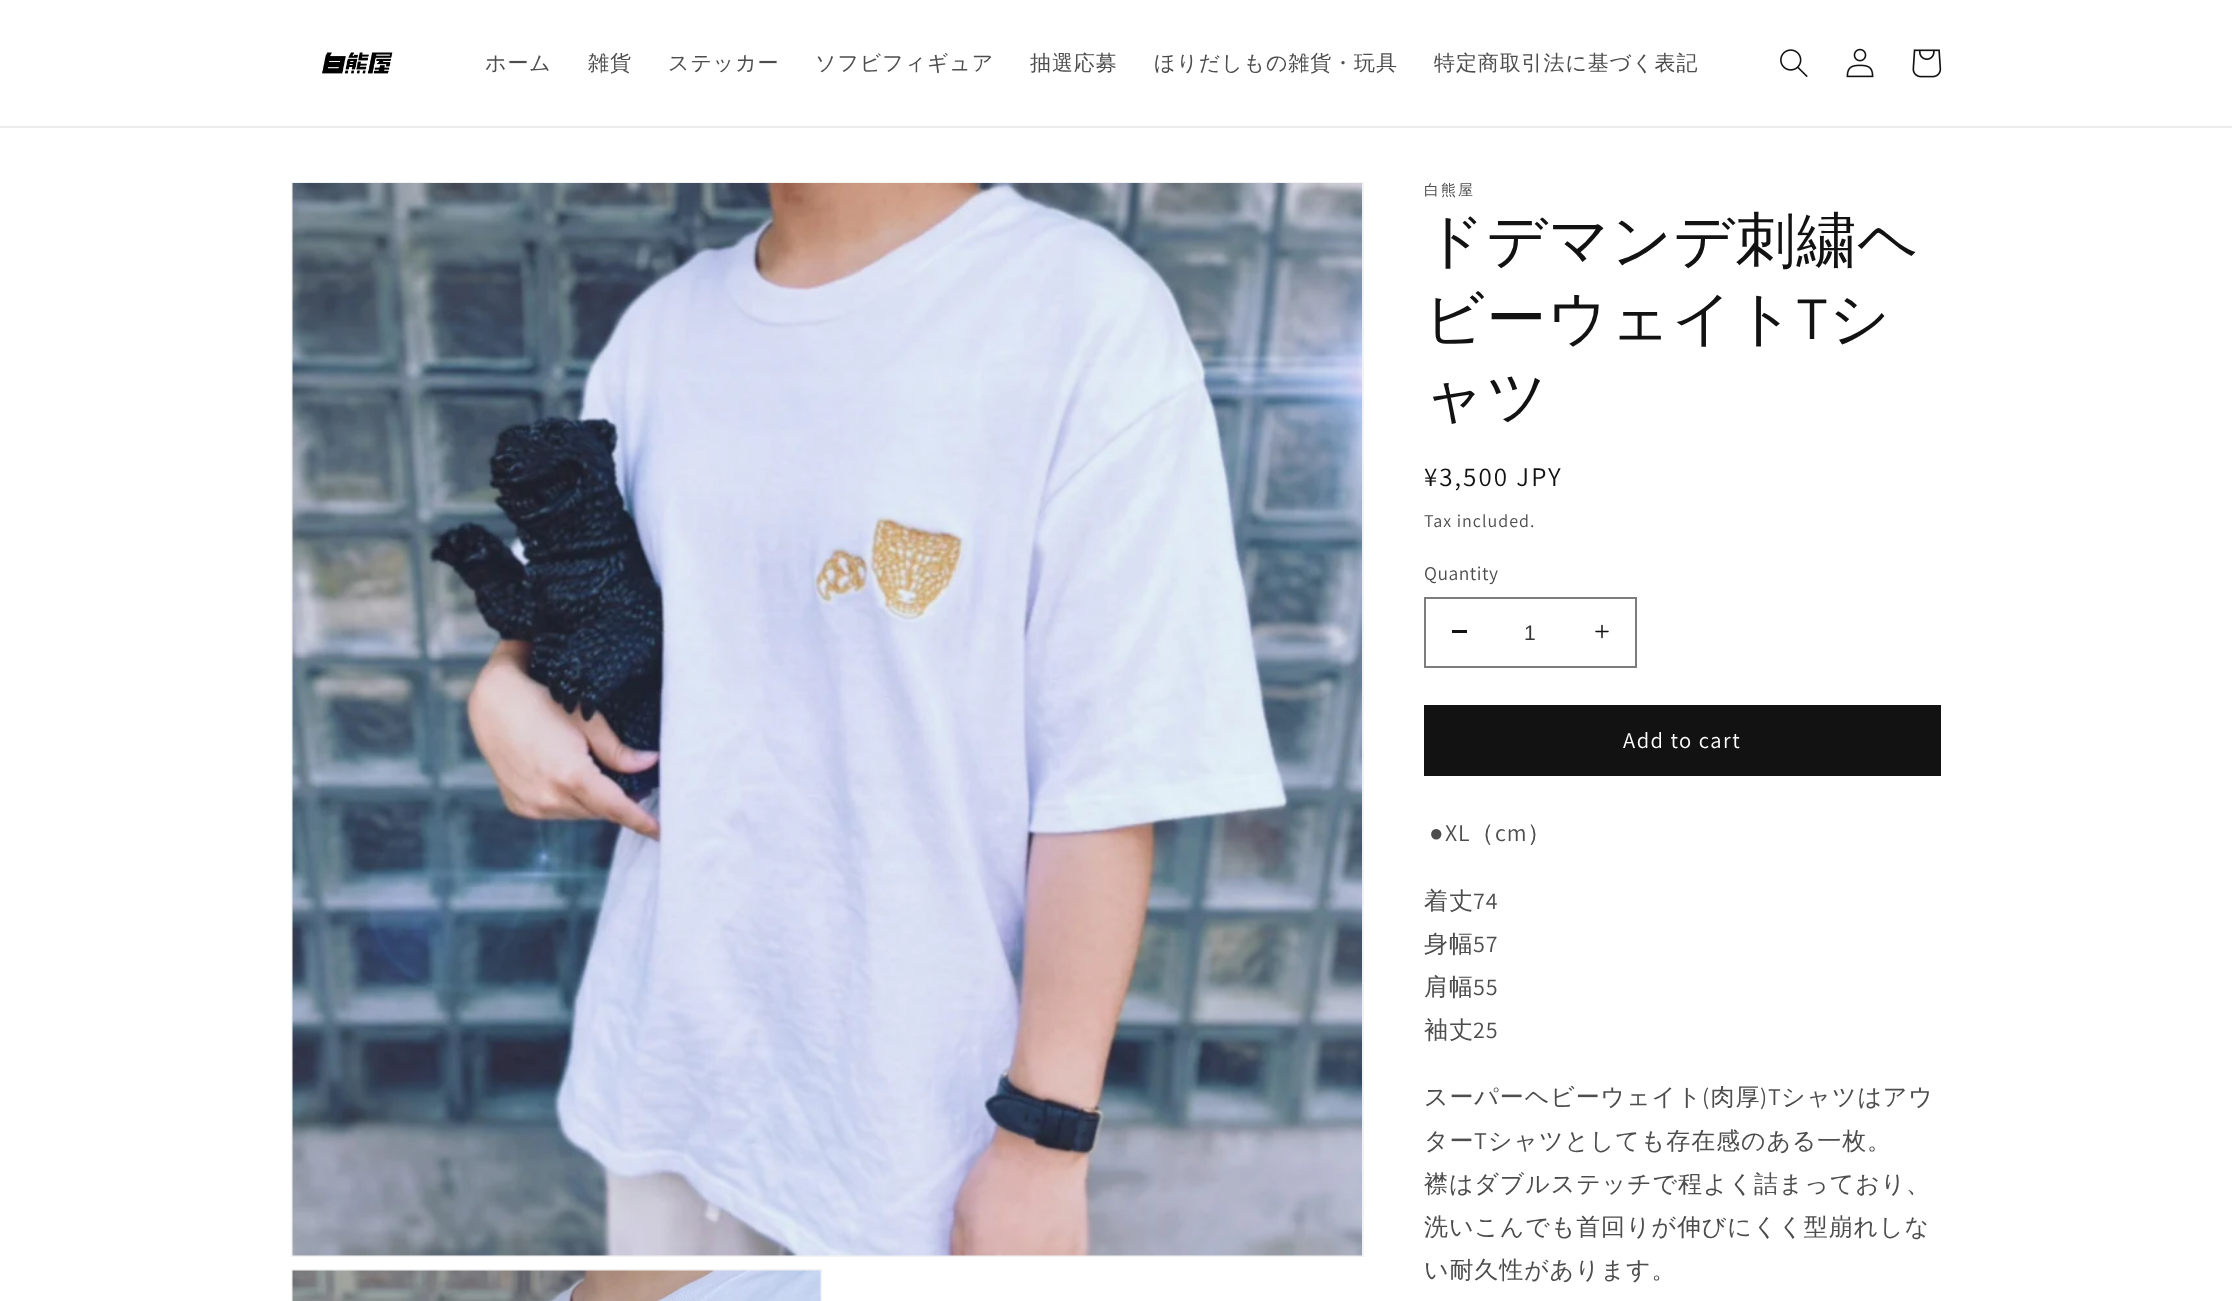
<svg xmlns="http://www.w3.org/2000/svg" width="2232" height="1301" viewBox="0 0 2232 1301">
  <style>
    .t1 { font: 500 21px WenQuanYi Zen Hei; letter-spacing: 0.9px; fill: #4d4d4d; }
    .t2 { font: 500 15px WenQuanYi Zen Hei; letter-spacing: 2px; fill: #4d4d4d; }
    .t3 { font: 500 60px WenQuanYi Zen Hei; letter-spacing: 0.9px; fill: #121212; }
    .t4 { font: 60px Assistant; letter-spacing: 0.9px; fill: #121212; }
    .t5 { font: 27px Assistant; letter-spacing: 2px; fill: #121212; }
    .t6 { font: 18px Assistant; letter-spacing: 1px; fill: #4d4d4d; }
    .t7 { font: 19.5px Assistant; letter-spacing: 0.5px; fill: #4d4d4d; }
    .t8 { font: 21px Liberation Sans; fill: #363636; }
    .t9 { font: 22.5px Assistant; letter-spacing: 1.5px; fill: #fff; }
    .t10 { font: 24px Liberation Sans; letter-spacing: 0.9px; fill: #4d4d4d; }
    .t11 { font: 24px Assistant; letter-spacing: 0.9px; fill: #4d4d4d; }
    .t12 { font: 500 24px WenQuanYi Zen Hei; letter-spacing: 0.9px; fill: #4d4d4d; }
  </style>
  <rect width="100%" height="100%" fill="#fff"/>
  <rect x="0" y="126" width="2232" height="2" fill="#ececec"/>
  <image x="322" y="52" width="71" height="22" href="images/1.png"/>
  <text x="485" y="70" class="t1">ホーム</text>
  <text x="588" y="70" class="t1">雑貨</text>
  <text x="668" y="70" class="t1">ステッカー</text>
  <text x="815" y="70" class="t1">ソフビフィギュア</text>
  <text x="1030" y="70" class="t1">抽選応募</text>
  <text x="1154" y="70" class="t1">ほりだしもの雑貨・玩具</text>
  <text x="1434" y="70" class="t1">特定商取引法に基づく表記</text>
  <image x="1780" y="49" width="28" height="28" href="images/2.png"/>
  <image x="1846" y="48" width="28" height="30" href="images/3.png"/>
  <image x="1912" y="49" width="30" height="29" href="images/4.png"/>
  <rect x="292" y="183" width="1071" height="1073" fill="none" stroke="#f3f3f3" stroke-width="2"/>
  <image x="292" y="183" width="1070" height="1073" href="images/5.png"/>
  <rect x="292" y="1270" width="529" height="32" fill="none" stroke="#f3f3f3" stroke-width="2"/>
  <image x="292" y="1270" width="529" height="31" href="images/6.png"/>
  <text x="1424" y="195" class="t2">白熊屋</text>
  <text x="1424" y="261" class="t3">ドデマンデ刺繍ヘ</text>
  <text x="1424" y="339" class="t3">ビーウェイト</text>
  <text x="1796" y="339" class="t4">T</text>
  <text x="1829" y="339" class="t3">シ</text>
  <text x="1424" y="417" class="t3">ャツ</text>
  <text x="1424" y="486" class="t5">¥3,500 JPY</text>
  <text x="1424" y="527" class="t6">Tax included.</text>
  <text x="1424" y="580" class="t7">Quantity</text>
  <rect x="1452" y="630" width="15" height="3" fill="#121212"/>
  <image x="1595" y="624" width="14" height="15" href="images/7.png"/>
  <rect x="1425" y="598" width="211" height="69" fill="none" stroke="#7d7d7d" stroke-width="2"/>
  <text x="1524" y="640" class="t8">1</text>
  <rect x="1424" y="705" width="517" height="71" fill="#121212"/>
  <text x="1623" y="748" class="t9">Add to cart</text>
  <text x="1429" y="841" class="t10">●</text>
  <text x="1445" y="841" class="t11">XL</text>
  <text x="1470" y="841" class="t12">（</text>
  <text x="1495" y="841" class="t11">cm</text>
  <text x="1527" y="841" class="t12">）</text>
  <text x="1424" y="909" class="t12">着丈</text>
  <text x="1473" y="909" class="t11">74</text>
  <text x="1424" y="952" class="t12">身幅</text>
  <text x="1473" y="952" class="t11">57</text>
  <text x="1424" y="995" class="t12">肩幅</text>
  <text x="1473" y="995" class="t11">55</text>
  <text x="1424" y="1038" class="t12">袖丈</text>
  <text x="1473" y="1038" class="t11">25</text>
  <text x="1424" y="1105" class="t12">スーパーヘビーウェイト 肉厚</text>
  <text x="1702" y="1105" class="t11">(</text>
  <text x="1760" y="1105" class="t11">)T</text>
  <text x="1781" y="1105" class="t12">シャツはアウ</text>
  <text x="1424" y="1149" class="t12">ター</text>
  <text x="1474" y="1149" class="t11">T</text>
  <text x="1488" y="1149" class="t12">シャツとしても存在感のある一枚。</text>
  <text x="1424" y="1192" class="t12">襟はダブルステッチで程よく詰まっており、</text>
  <text x="1424" y="1235" class="t12">洗いこんでも首回りが伸びにくく型崩れしな</text>
  <text x="1424" y="1278" class="t12">い耐久性があります。</text>
</svg>
